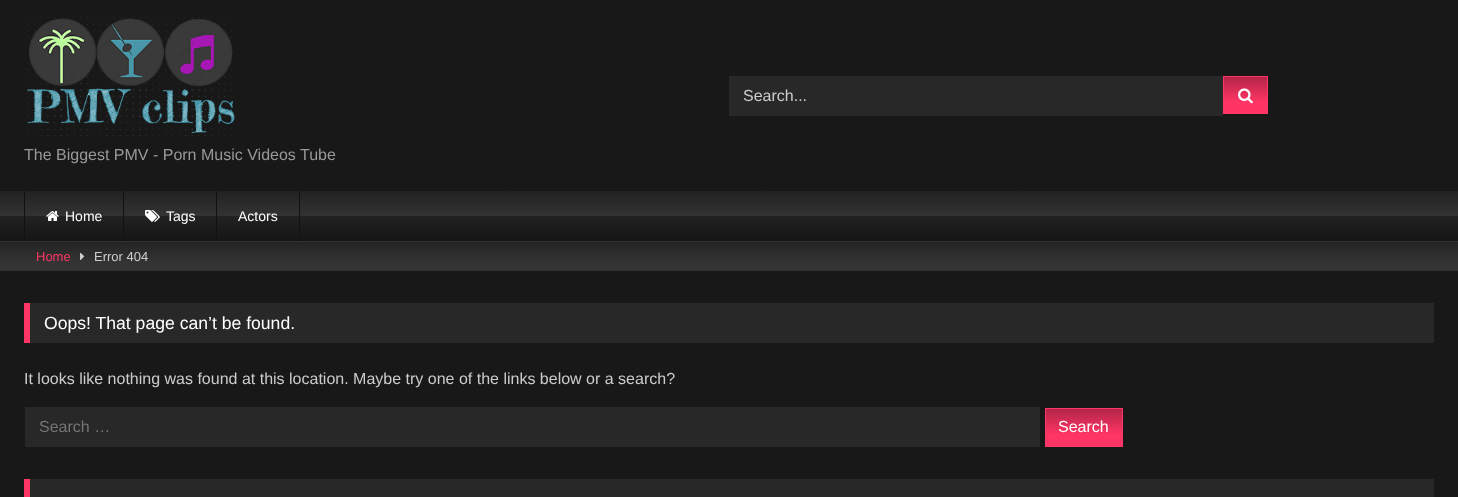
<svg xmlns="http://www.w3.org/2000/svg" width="1458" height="497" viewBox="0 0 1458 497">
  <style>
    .t1 { font: 16px Liberation Sans; fill: #ccc; }
    .t2 { font: 16px Liberation Sans; fill: #999; }
    .t3 { font: 14px Liberation Sans; fill: #fff; }
    .t4 { font: 13px Liberation Sans; fill: #ff3565; }
    .t5 { font: 13px Liberation Sans; fill: #ccc; }
    .t6 { font: 17.6px Liberation Sans; fill: #fff; }
    .t7 { font: 16px Liberation Sans; fill: #757575; }
    .t8 { font: 16px Liberation Sans; fill: #fff; }
  </style>
  <defs>
    <linearGradient id="g1" gradientUnits="userSpaceOnUse" x1="1246" y1="77" x2="1246" y2="113"><stop offset="0" stop-color="#b32547"/><stop offset="0.7" stop-color="#ff3565"/></linearGradient>
    <linearGradient id="g2" gradientUnits="userSpaceOnUse" x1="729" y1="191" x2="729" y2="241"><stop offset="0" stop-color="#222"/><stop offset="0.5" stop-color="#333"/><stop offset="0.51" stop-color="#222"/><stop offset="1" stop-color="#151515"/></linearGradient>
    <linearGradient id="g3" gradientUnits="userSpaceOnUse" x1="729" y1="242" x2="729" y2="270"><stop offset="0" stop-color="#242424"/><stop offset="0.7" stop-color="#333"/></linearGradient>
    <linearGradient id="g4" gradientUnits="userSpaceOnUse" x1="1084" y1="409" x2="1084" y2="446"><stop offset="0" stop-color="#b32547"/><stop offset="0.7" stop-color="#ff3565"/></linearGradient>
  </defs>
  <rect width="100%" height="100%" fill="#181818"/>
  <rect x="729" y="76" width="494" height="40" fill="#ffffff4d" filter="blur(0.5px)"/>
  <rect x="729" y="76" width="494" height="40" fill="#282828"/>
  <text x="743" y="101" class="t1">Search...</text>
  <rect x="1224" y="77" width="43" height="36" fill="url(#g1)"/>
  <rect x="1223.5" y="76.5" width="44" height="37" fill="none" stroke="#ff3565"/>
  <image x="1238" y="88" width="15" height="16" href="images/1.png"/>
  <image x="27" y="17" width="208" height="119" href="images/2.png"/>
  <text x="24" y="160" class="t2">The Biggest PMV - Porn Music Videos Tube</text>
  <rect x="0" y="191" width="1458" height="50" fill="url(#g2)"/>
  <rect x="123" y="191" width="1" height="50" fill="#121212"/>
  <rect x="24" y="191" width="1" height="50" fill="#121212"/>
  <image x="46" y="211" width="13" height="10" href="images/3.png"/>
  <text x="65" y="221" class="t3">Home</text>
  <rect x="216" y="191" width="1" height="50" fill="#121212"/>
  <image x="145" y="210" width="15" height="12" href="images/4.png"/>
  <text x="166" y="221" class="t3">Tags</text>
  <rect x="299" y="191" width="1" height="50" fill="#121212"/>
  <text x="238" y="221" class="t3">Actors</text>
  <rect x="0" y="241" width="1458" height="1" fill="#333"/>
  <rect x="0" y="242" width="1458" height="28" fill="url(#g3)"/>
  <rect x="0" y="270" width="1458" height="1" fill="#333"/>
  <text x="36" y="261" class="t4">Home</text>
  <image x="80" y="252" width="5" height="8" href="images/5.png"/>
  <text x="94" y="261" class="t5">Error 404</text>
  <rect x="30" y="303" width="1404" height="40" fill="#282828"/>
  <rect x="24" y="303" width="6" height="40" fill="#ff3565"/>
  <text x="44" y="329" class="t6">Oops! That page can’t be found.</text>
  <text x="24" y="384" class="t1">It looks like nothing was found at this location. Maybe try one of the links below or a search?</text>
  <rect x="25" y="407" width="1015" height="40" fill="#ffffff4d" filter="blur(0.5px)"/>
  <rect x="25" y="407" width="1015" height="40" fill="#282828"/>
  <text x="39" y="432" class="t7">Search …</text>
  <rect x="1046" y="409" width="76" height="37" fill="url(#g4)"/>
  <rect x="1045.5" y="408.5" width="77" height="38" fill="none" stroke="#ff3565"/>
  <text x="1058" y="432" class="t8">Search</text>
  <rect x="30" y="479" width="1404" height="18" fill="#282828"/>
  <rect x="24" y="479" width="6" height="18" fill="#ff3565"/>
</svg>
